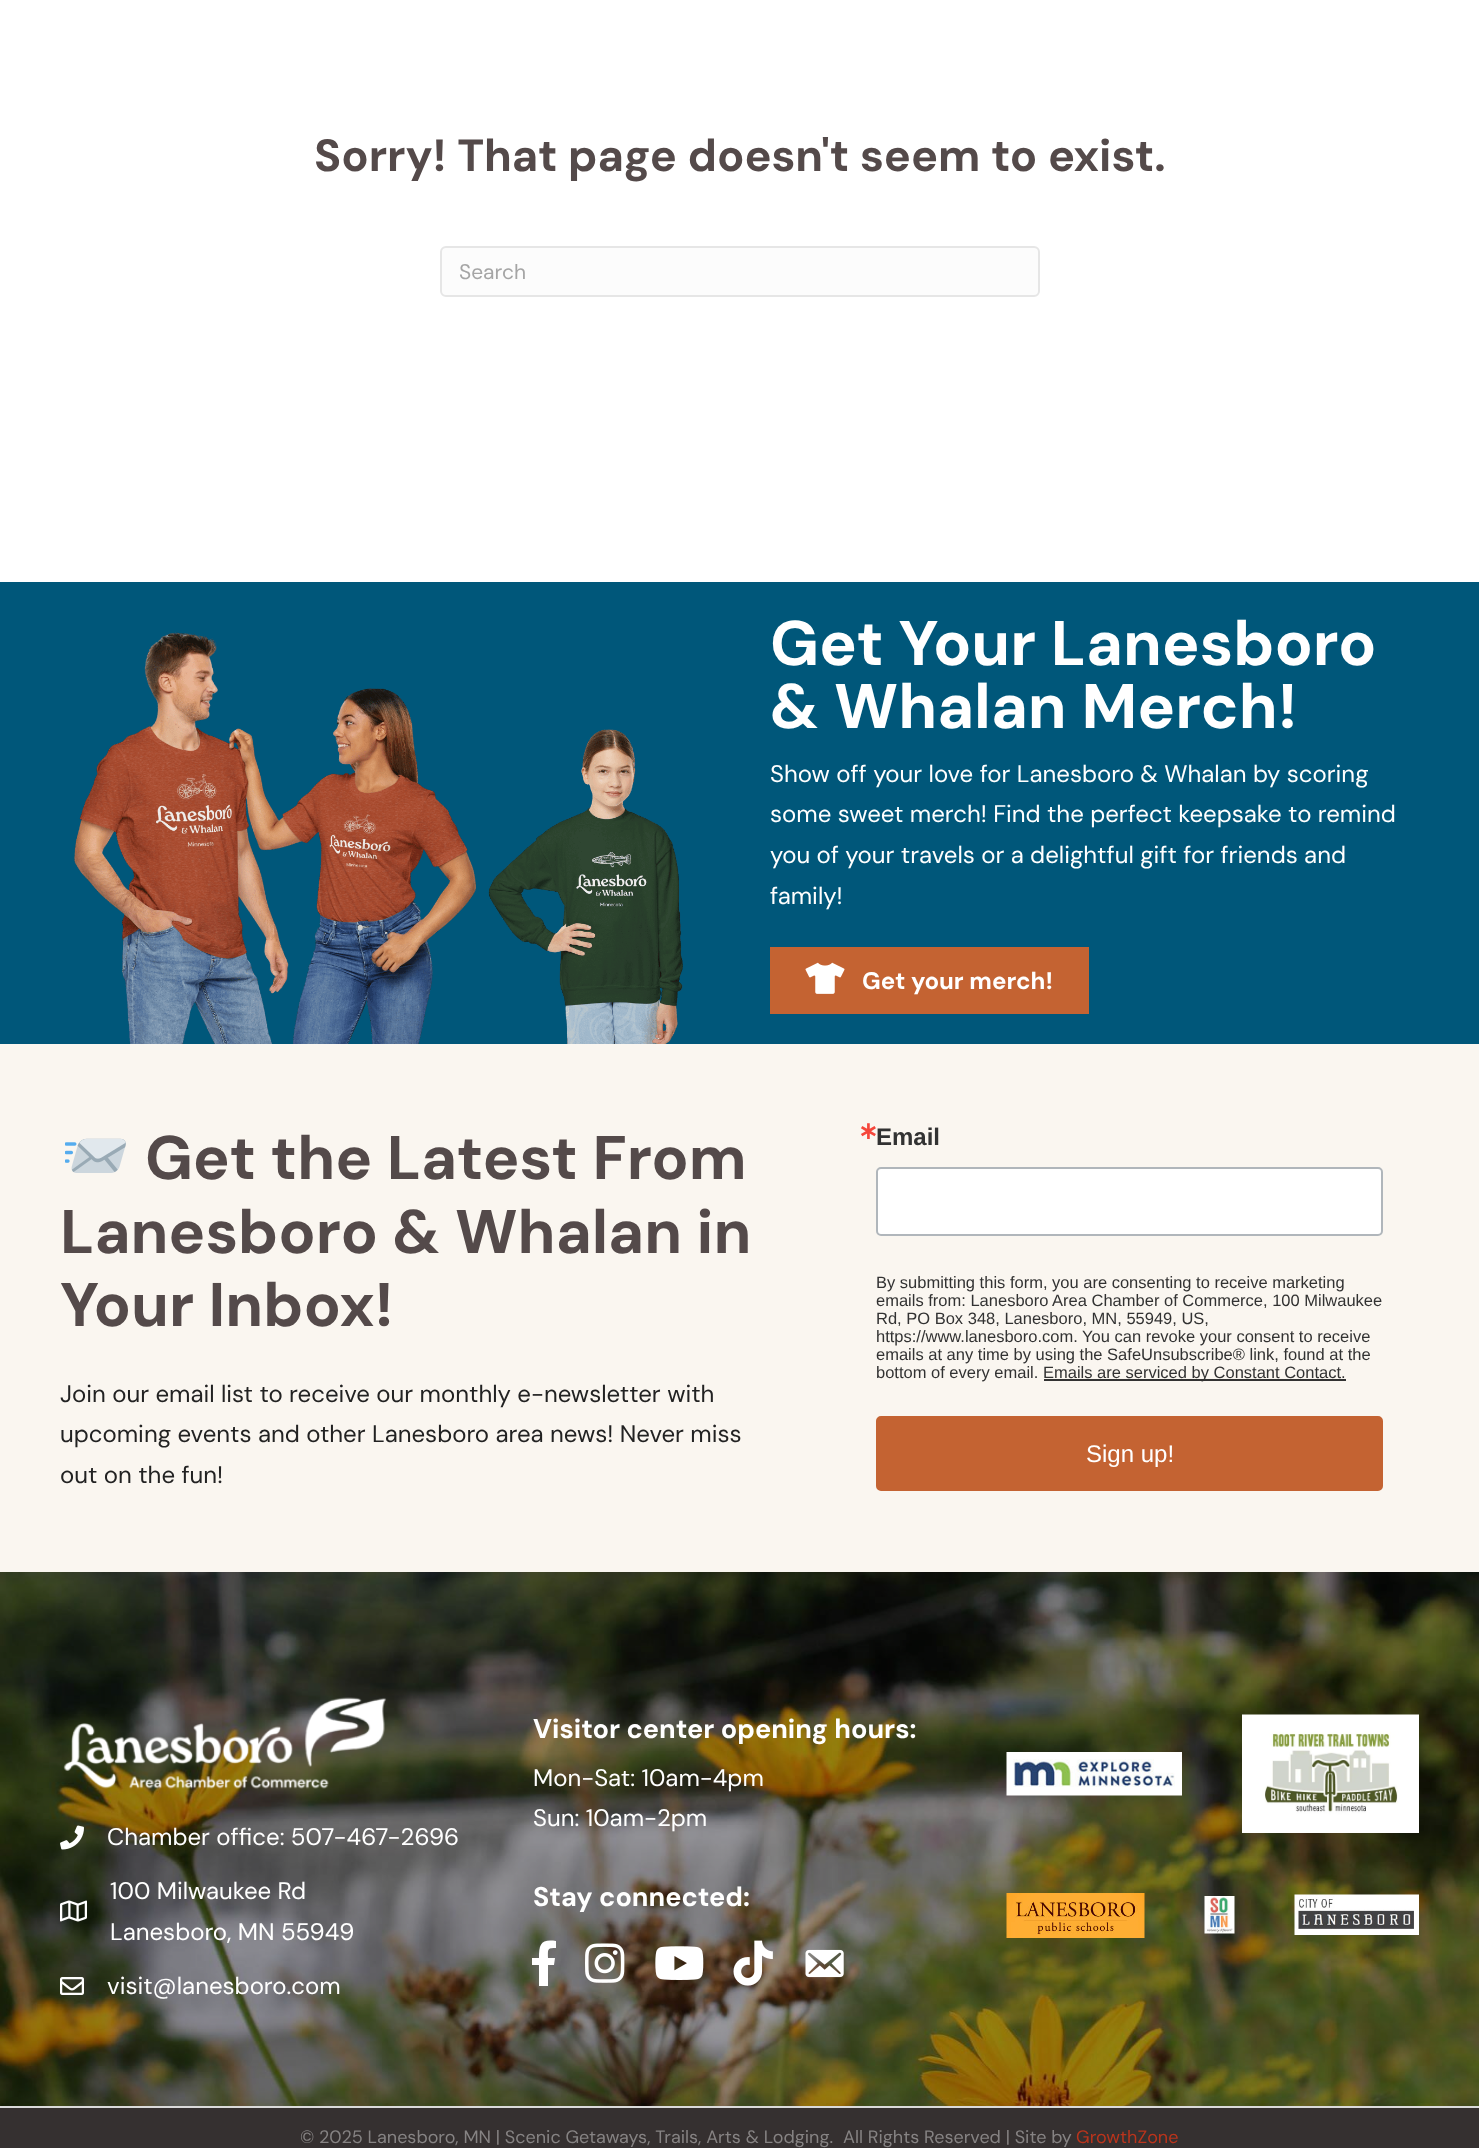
<svg xmlns="http://www.w3.org/2000/svg" width="1479" height="2148" viewBox="0 0 1479 2148">
  <style>
    .t1 { font: bold 45px DM Sans; fill: #544a4a; }
    .t2 { font: 21px DM Sans; fill: #a5a5a5; }
    .t3 { font: bold 63px DM Sans; fill: #fff; }
    .t4 { font: 24px DM Sans; fill: #fff; }
    .t5 { font: bold 24px DM Sans; fill: #fff; }
    .t6 { font: bold 61.5px DM Sans; fill: #544a4a; }
    .t7 { font: 24px DM Sans; fill: #222; }
    .t8 { font: bold 24px DejaVu Sans; fill: #f5463b; }
    .t9 { font: bold 24px Liberation Sans; fill: #323232; }
    .t10 { font: 16.5px Liberation Sans; fill: #323232; }
    .t11 { font: 24px Liberation Sans; fill: #fff; }
    .t12 { font: bold 27px DM Sans; fill: #fff; }
    .t13 { font: 18px DM Sans; fill: #868383; }
    .t14 { font: 18px DM Sans; fill: #ba341c; }
  </style>
  <rect width="100%" height="100%" fill="#fff"/>
  <text x="314" y="171" class="t1">Sorry! That page doesn't seem to exist.</text>
  <rect x="441" y="247" width="598" height="49" rx="5" fill="#fcfcfc" stroke="#e6e6e6" stroke-width="2"/>
  <text x="459" y="279" class="t2">Search</text>
  <rect x="0" y="582" width="1479" height="462" fill="#00577a"/>
  <image x="74" y="632" width="609" height="412" href="images/1.png"/>
  <text x="770" y="665" class="t3">Get Your Lanesboro</text>
  <text x="770" y="728" class="t3">&amp; Whalan Merch!</text>
  <text x="770" y="782" class="t4">Show off your love for Lanesboro &amp; Whalan by scoring</text>
  <text x="770" y="822" class="t4">some sweet merch! Find the perfect keepsake to remind</text>
  <text x="770" y="863" class="t4">you of your travels or a delightful gift for friends and</text>
  <text x="770" y="904" class="t4">family!</text>
  <rect x="770" y="947" width="319" height="67" fill="#c46332"/>
  <image x="805" y="962" width="40" height="32" href="images/2.png"/>
  <text x="862" y="989" class="t5">Get your merch!</text>
  <rect x="0" y="1044" width="1479" height="528" fill="#faf6f0"/>
  <image x="65" y="1138" width="61" height="35" href="images/3.png"/>
  <text x="145" y="1179" class="t6">Get the Latest From</text>
  <text x="60" y="1253" class="t6">Lanesboro &amp; Whalan in</text>
  <text x="60" y="1326" class="t6">Your Inbox!</text>
  <text x="60" y="1402" class="t7">Join our email list to receive our monthly e-newsletter with</text>
  <text x="60" y="1442" class="t7">upcoming events and other Lanesboro area news! Never miss</text>
  <text x="60" y="1483" class="t7">out on the fun!</text>
  <text x="858" y="1139" class="t8">∗</text>
  <text x="876" y="1145" class="t9">Email</text>
  <rect x="877" y="1168" width="505" height="67" rx="4" fill="#fff" stroke="#b0b6bb" stroke-width="2"/>
  <text x="876" y="1288" class="t10">By submitting this form, you are consenting to receive marketing</text>
  <text x="876" y="1306" class="t10">emails from: Lanesboro Area Chamber of Commerce, 100 Milwaukee</text>
  <text x="876" y="1324" class="t10">Rd, PO Box 348, Lanesboro, MN, 55949, US,</text>
  <text x="876" y="1342" class="t10">https://www.lanesboro.com. You can revoke your consent to receive</text>
  <text x="876" y="1360" class="t10">emails at any time by using the SafeUnsubscribe® link, found at the</text>
  <text x="876" y="1378" class="t10">bottom of every email.</text>
  <rect x="1044" y="1379" width="302" height="2" fill="#323232"/>
  <text x="1043" y="1378" class="t10">Emails are serviced by Constant Contact.</text>
  <rect x="877" y="1417" width="505" height="73" rx="4" fill="#c46332" stroke="#c46332" stroke-width="2"/>
  <text x="1086" y="1462" class="t11">Sign up!</text>
  <image x="0" y="1572" width="1479" height="534" href="images/4.png"/>
  <image x="63" y="1697" width="324" height="92" href="images/5.png"/>
  <image x="60" y="1825" width="24" height="25" href="images/6.png"/>
  <text x="107" y="1845" class="t4">Chamber office: 507-467-2696</text>
  <image x="60" y="1900" width="27" height="22" href="images/7.png"/>
  <text x="110" y="1899" class="t4">100 Milwaukee Rd</text>
  <text x="110" y="1940" class="t4">Lanesboro, MN 55949</text>
  <image x="60" y="1977" width="24" height="18" href="images/8.png"/>
  <text x="107" y="1994" class="t4">visit@lanesboro.com</text>
  <text x="533" y="1738" class="t12">Visitor center opening hours:</text>
  <text x="533" y="1786" class="t4">Mon-Sat: 10am-4pm</text>
  <text x="533" y="1826" class="t4">Sun: 10am-2pm</text>
  <text x="533" y="1906" class="t12">Stay connected:</text>
  <path d="M539 1986V1965H532V1958H539C539 1944 541 1939 556 1941V1948C547 1948 548 1949 548 1958H555L554 1965H548V1986Z" fill="#fff"/>
  <image x="585" y="1943" width="40" height="40" href="images/9.png"/>
  <image x="655" y="1946" width="49" height="34" href="images/10.png"/>
  <image x="733" y="1940" width="40" height="46" href="images/11.png"/>
  <image x="805" y="1949" width="39" height="29" href="images/12.png"/>
  <image x="1006" y="1752" width="176" height="44" href="images/13.png"/>
  <image x="1242" y="1714" width="177" height="119" href="images/14.png"/>
  <image x="1006" y="1893" width="139" height="45" href="images/15.png"/>
  <image x="1204" y="1896" width="31" height="38" href="images/16.png"/>
  <image x="1294" y="1894" width="125" height="41" href="images/17.png"/>
  <rect x="0" y="2108" width="1479" height="40" fill="#353030"/>
  <rect x="0" y="2106" width="1479" height="2" fill="#dadada"/>
  <text x="300" y="2143" class="t13">© 2025 Lanesboro, MN | Scenic Getaways, Trails, Arts &amp; Lodging.</text>
  <text x="843" y="2143" class="t13">All Rights Reserved | Site by</text>
  <text x="1076" y="2143" class="t14">GrowthZone</text>
</svg>
